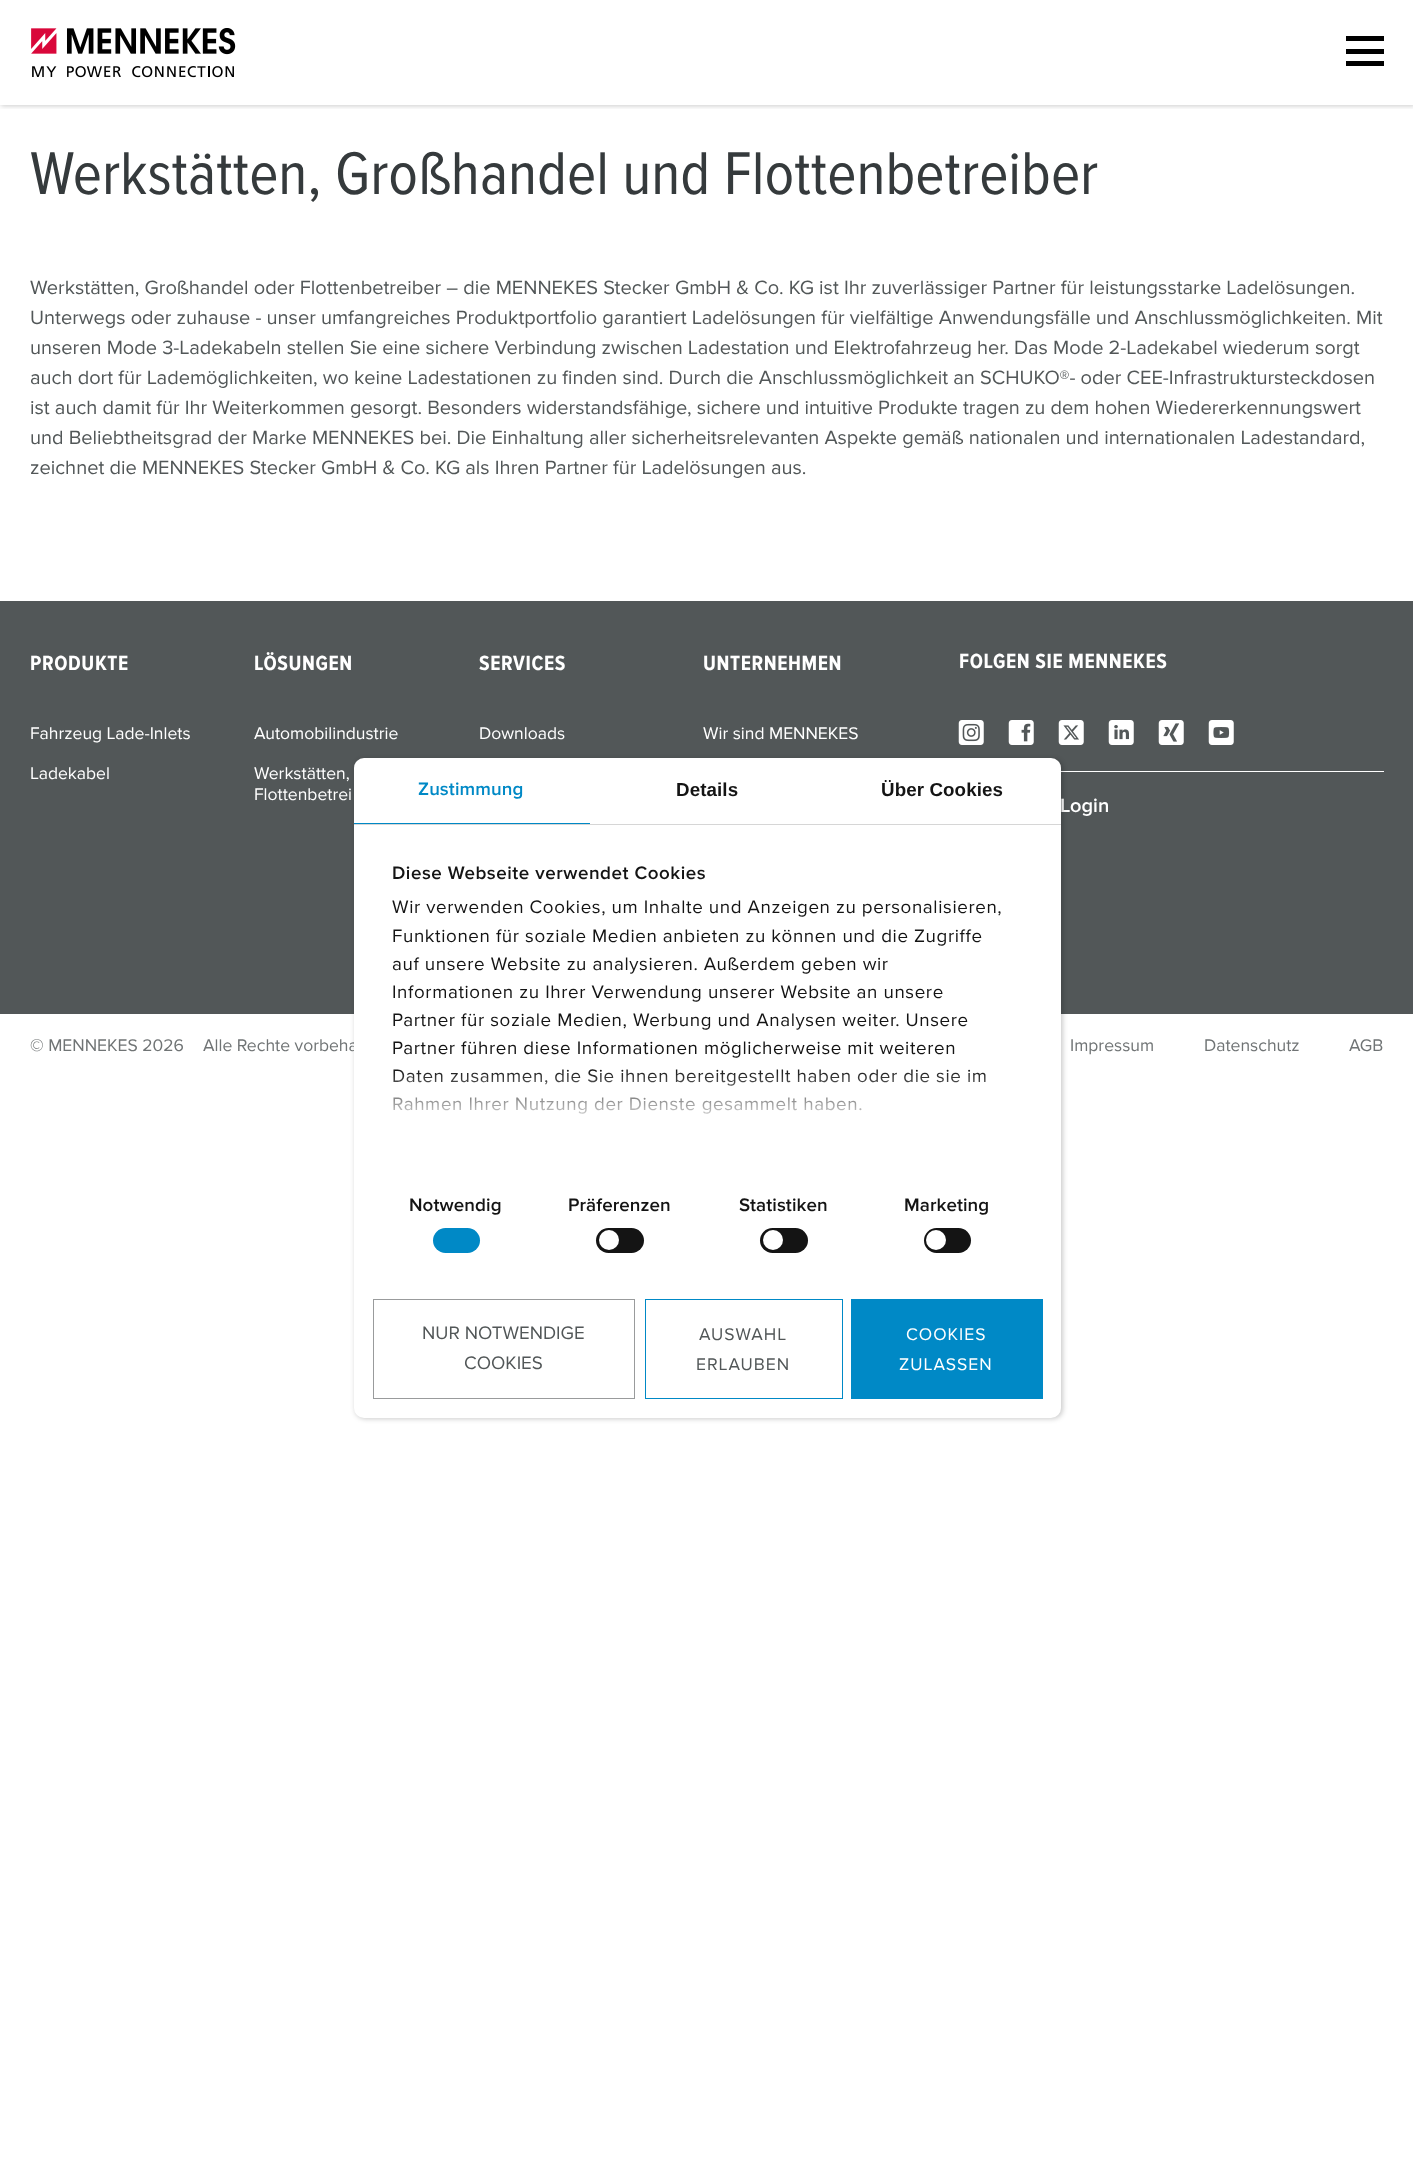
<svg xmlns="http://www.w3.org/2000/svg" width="1413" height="2175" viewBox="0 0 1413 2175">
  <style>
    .t1 { font: 62.5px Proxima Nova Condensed; fill: #353a3c; }
    .t2 { font: 20px Proxima Nova; fill: #525758; }
    .t3 { font: bold 21.25px Proxima Nova Condensed; letter-spacing: 0.6px; fill: #fff; }
    .t4 { font: 17.5px Proxima Nova; fill: #fff; }
    .t5 { font: 600 20px Proxima Nova; fill: #fff; }
    .t6 { font: 17.5px Proxima Nova; fill: #707475; }
    .t7 { font: 600 18.75px Proxima Nova; letter-spacing: 0.1px; fill: #0089c6; }
    .t8 { font: bold 18.75px Liberation Sans; letter-spacing: 0.1px; fill: #141414; }
    .t9 { font: 600 18.75px Proxima Nova; letter-spacing: 0.55px; fill: #141414; }
    .t10 { font: 18.75px Proxima Nova; letter-spacing: 0.62px; fill: #141414; }
    .t11 { font: 600 18.75px Proxima Nova; letter-spacing: 0.1px; fill: #141414; }
    .t12 { font: 18.75px Proxima Nova; fill: #525758; }
    .t13 { font: 17.5px Proxima Nova; letter-spacing: 1px; fill: #525758; }
    .t14 { font: 17.5px Proxima Nova; letter-spacing: 1px; fill: #fff; }
  </style>
  <defs>
    <clipPath id="clip1"><rect x="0" y="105" width="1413" height="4"/></clipPath>
    <linearGradient id="g1" gradientUnits="userSpaceOnUse" x1="693" y1="1163" x2="693" y2="1069"><stop offset="0" stop-color="#fff"/><stop offset="0.5" stop-color="#fff" stop-opacity="0.8"/><stop offset="1" stop-color="#fff" stop-opacity="0"/></linearGradient>
  </defs>
  <rect width="100%" height="100%" fill="#fff"/>
  <g clip-path="url(#clip1)">
    <rect x="1" y="1" width="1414" height="105" fill="#00000033" filter="blur(2.5px)"/>
  </g>
  <image x="31" y="28" width="205" height="50" href="images/1.png"/>
  <rect x="1346" y="49" width="38" height="5" fill="#000"/>
  <rect x="1346" y="36" width="38" height="5" fill="#000"/>
  <rect x="1346" y="61" width="38" height="5" fill="#000"/>
  <text x="30" y="194" class="t1">Werkstätten, Großhandel und Flottenbetreiber</text>
  <text x="30" y="294" class="t2">Werkstätten, Großhandel oder Flottenbetreiber – die MENNEKES Stecker GmbH &amp; Co. KG ist Ihr zuverlässiger Partner für leistungsstarke Ladelösungen.</text>
  <text x="30" y="324" class="t2">Unterwegs oder zuhause - unser umfangreiches Produktportfolio garantiert Ladelösungen für vielfältige Anwendungsfälle und Anschlussmöglichkeiten. Mit</text>
  <text x="30" y="354" class="t2">unseren Mode 3-Ladekabeln stellen Sie eine sichere Verbindung zwischen Ladestation und Elektrofahrzeug her. Das Mode 2-Ladekabel wiederum sorgt</text>
  <text x="30" y="384" class="t2">auch dort für Lademöglichkeiten, wo keine Ladestationen zu finden sind. Durch die Anschlussmöglichkeit an SCHUKO®- oder CEE-Infrastruktursteckdosen</text>
  <text x="30" y="414" class="t2">ist auch damit für Ihr Weiterkommen gesorgt. Besonders widerstandsfähige, sichere und intuitive Produkte tragen zu dem hohen Wiedererkennungswert</text>
  <text x="30" y="444" class="t2">und Beliebtheitsgrad der Marke MENNEKES bei. Die Einhaltung aller sicherheitsrelevanten Aspekte gemäß nationalen und internationalen Ladestandard,</text>
  <text x="30" y="474" class="t2">zeichnet die MENNEKES Stecker GmbH &amp; Co. KG als Ihren Partner für Ladelösungen aus.</text>
  <rect x="0" y="601" width="1413" height="413" fill="#525758"/>
  <text x="30" y="670" class="t3">PRODUKTE</text>
  <text x="30" y="739" class="t4">Fahrzeug Lade-Inlets</text>
  <text x="30" y="779" class="t4">Ladekabel</text>
  <text x="254" y="670" class="t3">LÖSUNGEN</text>
  <text x="254" y="739" class="t4">Automobilindustrie</text>
  <text x="254" y="779" class="t4">Werkstätten,</text>
  <text x="254" y="800" class="t4">Flottenbetrei</text>
  <text x="479" y="670" class="t3">SERVICES</text>
  <text x="479" y="739" class="t4">Downloads</text>
  <text x="703" y="670" class="t3">UNTERNEHMEN</text>
  <text x="703" y="739" class="t4">Wir sind MENNEKES</text>
  <text x="959" y="668" class="t3">FOLGEN SIE MENNEKES</text>
  <image x="958" y="720" width="26" height="25" href="images/2.png"/>
  <image x="1008" y="720" width="26" height="25" href="images/3.png"/>
  <image x="1058" y="720" width="26" height="25" href="images/4.png"/>
  <image x="1108" y="720" width="26" height="25" href="images/5.png"/>
  <image x="1158" y="720" width="26" height="25" href="images/6.png"/>
  <image x="1208" y="720" width="26" height="25" href="images/7.png"/>
  <rect x="1061" y="771" width="323" height="1" fill="#fff"/>
  <text x="1060" y="812" class="t5">Login</text>
  <text x="30" y="1051" class="t6">© MENNEKES 2026</text>
  <text x="203" y="1051" class="t6">Alle Rechte vorbeha</text>
  <text x="1070" y="1051" class="t6">Impressum</text>
  <text x="1204" y="1051" class="t6">Datenschutz</text>
  <text x="1349" y="1051" class="t6">AGB</text>
  <rect x="355" y="759" width="708" height="660" rx="10" fill="#00000033" filter="blur(2.5px)"/>
  <rect x="354" y="758" width="707" height="660" rx="10" fill="#fff"/>
  <rect x="354" y="824" width="707" height="1" fill="#d6d6d6"/>
  <rect x="354" y="823" width="236" height="1" fill="#0089c6"/>
  <text x="418" y="795" class="t7">Zustimmung</text>
  <text x="676" y="796" class="t8">Details</text>
  <text x="881" y="796" class="t8">Über Cookies</text>
  <text x="392" y="879" class="t9">Diese Webseite verwendet Cookies</text>
  <text x="392" y="913" class="t10">Wir verwenden Cookies, um Inhalte und Anzeigen zu personalisieren,</text>
  <text x="392" y="942" class="t10">Funktionen für soziale Medien anbieten zu können und die Zugriffe</text>
  <text x="392" y="970" class="t10">auf unsere Website zu analysieren. Außerdem geben wir</text>
  <text x="392" y="998" class="t10">Informationen zu Ihrer Verwendung unserer Website an unsere</text>
  <text x="392" y="1026" class="t10">Partner für soziale Medien, Werbung und Analysen weiter. Unsere</text>
  <text x="392" y="1054" class="t10">Partner führen diese Informationen möglicherweise mit weiteren</text>
  <text x="392" y="1082" class="t10">Daten zusammen, die Sie ihnen bereitgestellt haben oder die sie im</text>
  <text x="392" y="1110" class="t10">Rahmen Ihrer Nutzung der Dienste gesammelt haben.</text>
  <rect x="393" y="1070" width="593" height="44" fill="url(#g1)"/>
  <text x="409" y="1211" class="t11">Notwendig</text>
  <rect x="433" y="1228" width="47" height="25" rx="12.5" fill="#0089c6"/>
  <text x="568" y="1211" class="t11">Präferenzen</text>
  <rect x="596" y="1228" width="48" height="25" rx="12.5" fill="#141414"/>
  <circle cx="609" cy="1240" r="10" fill="#fff"/>
  <text x="739" y="1211" class="t11">Statistiken</text>
  <rect x="760" y="1228" width="48" height="25" rx="12.5" fill="#141414"/>
  <circle cx="773" cy="1240" r="10" fill="#fff"/>
  <text x="904" y="1211" class="t11">Marketing</text>
  <rect x="924" y="1228" width="47" height="25" rx="12.5" fill="#141414"/>
  <circle cx="936" cy="1240" r="10" fill="#fff"/>
  <rect x="373.5" y="1299.5" width="261" height="99" fill="none" stroke="#999b9c"/>
  <text x="422" y="1339" class="t12">NUR NOTWENDIGE</text>
  <text x="464" y="1369" class="t12">COOKIES</text>
  <rect x="645.5" y="1299.5" width="197" height="99" fill="none" stroke="#0089c6"/>
  <text x="699" y="1340" class="t13">AUSWAHL</text>
  <text x="696" y="1370" class="t13">ERLAUBEN</text>
  <rect x="851" y="1299" width="192" height="100" fill="#0089c6"/>
  <text x="906" y="1340" class="t14">COOKIES</text>
  <text x="899" y="1370" class="t14">ZULASSEN</text>
</svg>
